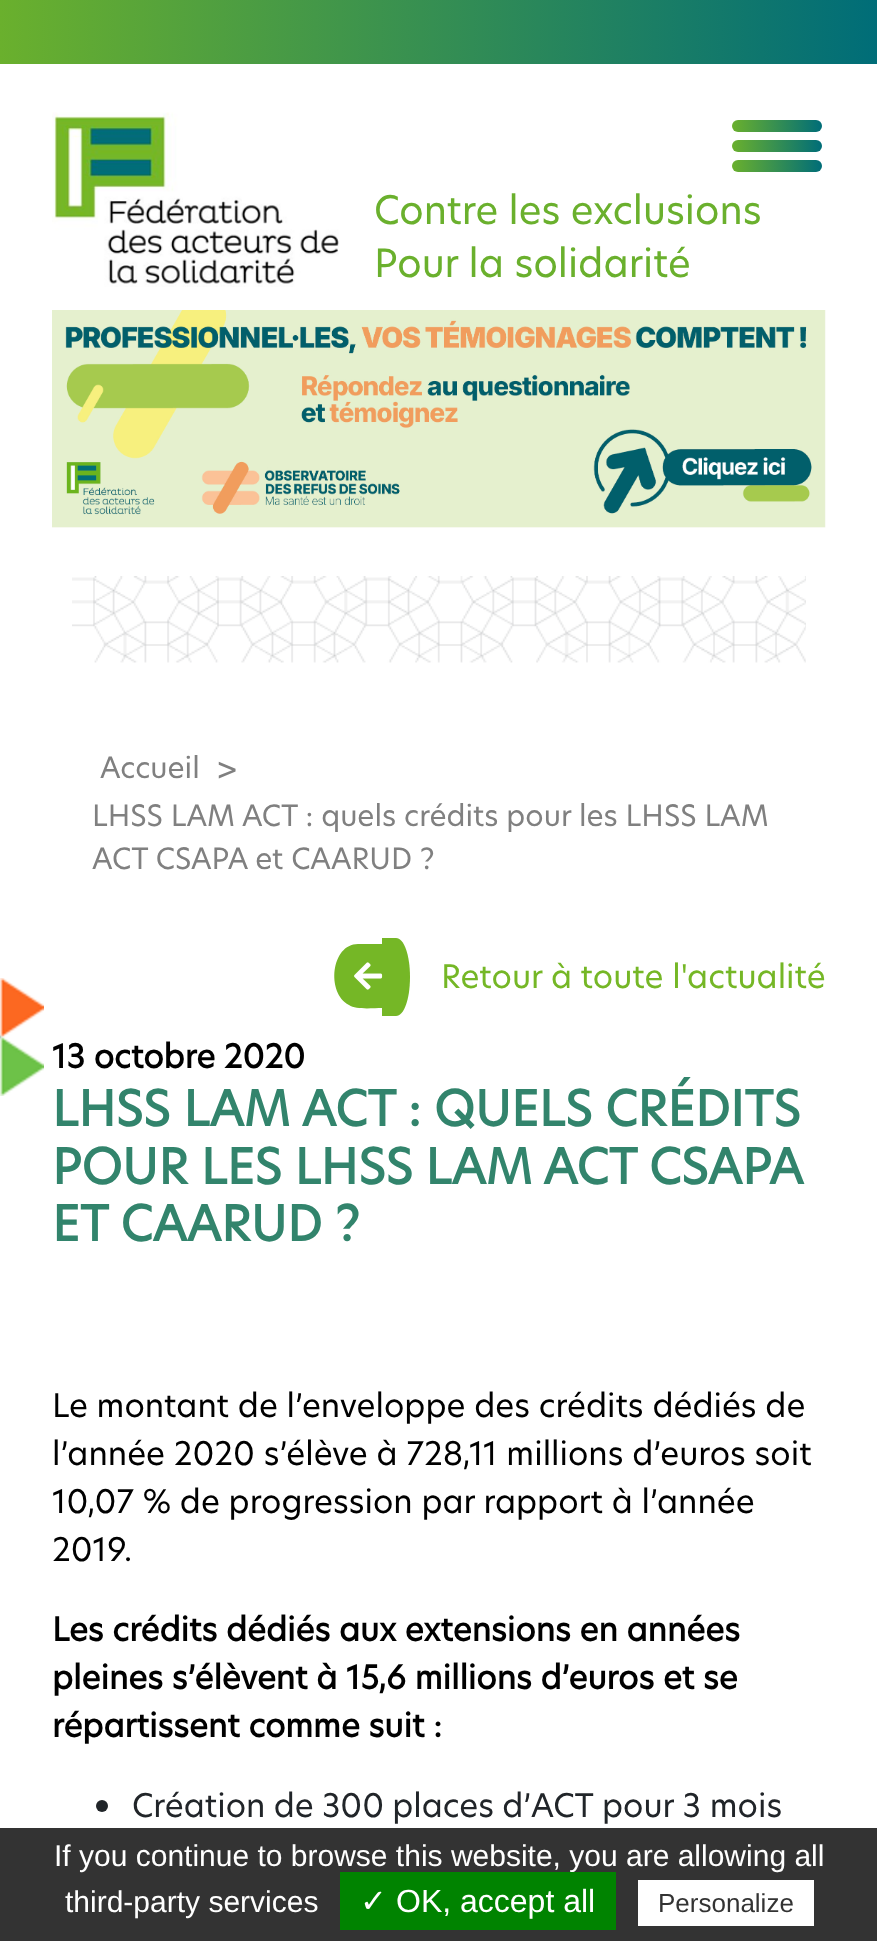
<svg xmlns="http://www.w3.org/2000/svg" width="877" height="1941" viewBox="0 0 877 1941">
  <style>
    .t1 { font: 38.4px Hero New; fill: #6ab02d; }
    .t2 { font: 28.8px Hero New; fill: #808080; }
    .t3 { font: 32px Hero New; fill: #808080; }
    .t4 { font: 32px Hero New; fill: #75b726; }
    .t5 { font: bold 32px Hero New; fill: #000; }
    .t6 { font: bold 48px Hero New; fill: #32846c; }
    .t7 { font: 32px Hero New; fill: #000; }
    .t8 { font: 32px Hero New; fill: #212529; }
    .t9 { font: 30px Liberation Sans; fill: #fff; }
    .t10 { font: 32px DejaVu Sans; fill: #fff; }
    .t11 { font: 32px Liberation Sans; fill: #fff; }
    .t12 { font: 26px Liberation Sans; fill: #333; }
  </style>
  <defs>
    <linearGradient id="g1" gradientUnits="userSpaceOnUse" x1="0" y1="32" x2="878" y2="32"><stop offset="0" stop-color="#6ab02d"/><stop offset="1" stop-color="#006d78"/></linearGradient>
    <linearGradient id="g2" gradientUnits="userSpaceOnUse" x1="732" y1="126" x2="822" y2="126"><stop offset="0" stop-color="#6ab02d"/><stop offset="1" stop-color="#006d78"/></linearGradient>
    <linearGradient id="g3" gradientUnits="userSpaceOnUse" x1="732" y1="146" x2="822" y2="146"><stop offset="0" stop-color="#6ab02d"/><stop offset="1" stop-color="#006d78"/></linearGradient>
    <linearGradient id="g4" gradientUnits="userSpaceOnUse" x1="732" y1="166" x2="822" y2="166"><stop offset="0" stop-color="#6ab02d"/><stop offset="1" stop-color="#006d78"/></linearGradient>
  </defs>
  <rect width="100%" height="100%" fill="#fff"/>
  <rect x="0" y="0" width="877" height="64" fill="url(#g1)"/>
  <rect x="732" y="120" width="90" height="12" rx="6" fill="url(#g2)"/>
  <rect x="732" y="140" width="90" height="12" rx="6" fill="url(#g3)"/>
  <rect x="732" y="160" width="90" height="12" rx="6" fill="url(#g4)"/>
  <image x="52" y="112" width="287" height="175" href="images/1.png"/>
  <text x="374" y="224" class="t1">Contre les exclusions</text>
  <text x="374" y="277" class="t1">Pour la solidarité</text>
  <image x="52" y="310" width="774" height="218" href="images/2.png"/>
  <image x="72" y="576" width="734" height="87" href="images/3.png"/>
  <text x="100" y="778" class="t2">Accueil</text>
  <text x="216" y="782" class="t3">&gt;</text>
  <text x="92" y="826" class="t2">LHSS LAM ACT : quels crédits pour les LHSS LAM</text>
  <text x="92" y="869" class="t2">ACT CSAPA et CAARUD ?</text>
  <path d="M358 944H382V1008C373 1008 356 1010 349 1005C326 993 331 944 358 944Z" fill="#75b726"/>
  <path d="M382 938H396C404 938 410 955 410 977C410 999 404 1016 396 1016H382Z" fill="#75b726"/>
  <image x="354" y="962" width="29" height="28" href="images/4.png"/>
  <text x="441" y="988" class="t4">Retour à toute l'actualité</text>
  <text x="52" y="1068" class="t5">13 octobre 2020</text>
  <image x="0" y="978" width="44" height="118" href="images/5.png"/>
  <text x="52" y="1126" class="t6">LHSS LAM ACT : QUELS CRÉDITS</text>
  <text x="52" y="1184" word-spacing="-0.5" class="t6">POUR LES LHSS LAM ACT CSAPA</text>
  <text x="52" y="1241" class="t6">ET CAARUD ?</text>
  <text x="52" y="1417" class="t7">Le montant de l’enveloppe des crédits dédiés de</text>
  <text x="52" y="1465" class="t7">l’année 2020 s’élève à 728,11 millions d’euros soit</text>
  <text x="52" y="1513" class="t7">10,07 % de progression par rapport à l’année</text>
  <text x="52" y="1561" class="t7">2019.</text>
  <text x="52" y="1641" class="t5">Les crédits dédiés aux extensions en années</text>
  <text x="52" y="1689" class="t5">pleines s’élèvent à 15,6 millions d’euros et se</text>
  <text x="52" y="1737" class="t5">répartissent comme suit :</text>
  <circle cx="102" cy="1806" r="6" fill="#212529"/>
  <text x="132" y="1817" word-spacing="-0.5" class="t8">Création de 300 places d’</text>
  <text x="531" y="1817" class="t8">ACT</text>
  <text x="602" y="1817" class="t8">pour 3 mois</text>
  <rect x="0" y="1828" width="877" height="113" fill="#333"/>
  <text x="54" y="1866" class="t9">If you continue to browse this website, you are allowing all</text>
  <text x="65" y="1912" class="t9">third-party services</text>
  <rect x="340" y="1872" width="276" height="58" fill="#008300"/>
  <text x="360" y="1912" class="t10">✓</text>
  <text x="396" y="1912" class="t11">OK, accept all</text>
  <rect x="638" y="1880" width="176" height="46" fill="#fff"/>
  <text x="658" y="1912" class="t12">Personalize</text>
</svg>
